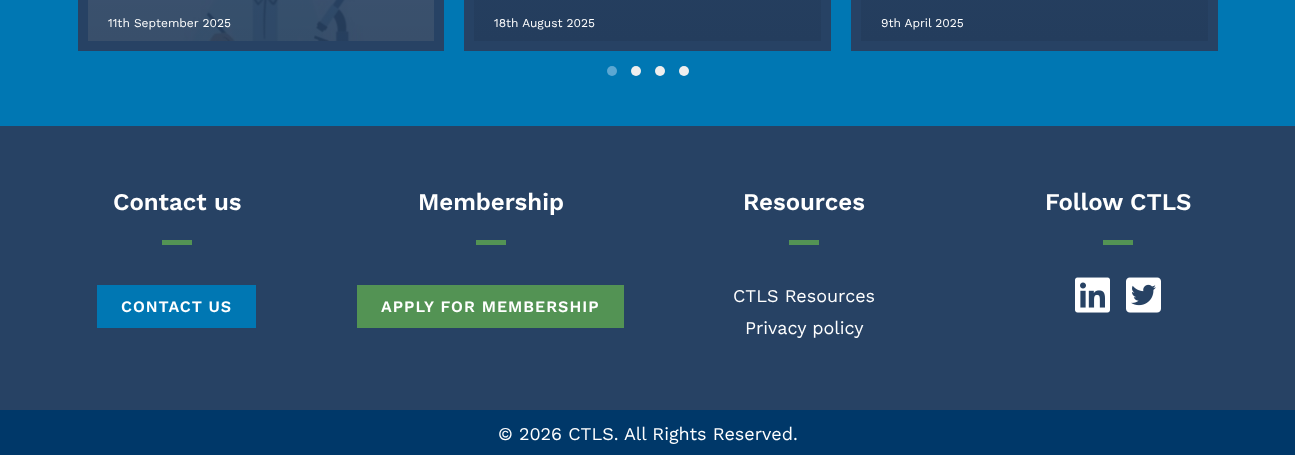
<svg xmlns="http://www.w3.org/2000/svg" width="1295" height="455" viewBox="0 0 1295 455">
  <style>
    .t1 { font: 12px Work Sans; fill: #fff; }
    .t2 { font: 600 24px Work Sans; fill: #fff; }
    .t3 { font: 600 16px Work Sans; letter-spacing: 1px; fill: #fff; }
    .t4 { font: 18px Work Sans; fill: #fff; }
  </style>
  <defs>
    <linearGradient id="g1" gradientUnits="userSpaceOnUse" x1="261" y1="-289" x2="261" y2="41"><stop offset="0.4" stop-color="#000" stop-opacity="0"/><stop offset="1" stop-color="#000" stop-opacity="0.07"/></linearGradient>
    <linearGradient id="g2" gradientUnits="userSpaceOnUse" x1="648" y1="-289" x2="648" y2="41"><stop offset="0.4" stop-color="#274264"/><stop offset="1" stop-color="#243d5d"/></linearGradient>
    <linearGradient id="g3" gradientUnits="userSpaceOnUse" x1="1035" y1="-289" x2="1035" y2="41"><stop offset="0.4" stop-color="#274264"/><stop offset="1" stop-color="#243d5d"/></linearGradient>
  </defs>
  <rect width="100%" height="100%" fill="#0077b3"/>
  <rect x="78" y="0" width="366" height="51" fill="#274264"/>
  <image x="88" y="0" width="346" height="41" href="images/1.png"/>
  <rect x="88" y="0" width="346" height="41" fill="url(#g1)"/>
  <text x="108" y="27" class="t1">11th September 2025</text>
  <rect x="464" y="0" width="367" height="51" fill="#274264"/>
  <rect x="474" y="0" width="347" height="41" fill="url(#g2)"/>
  <text x="494" y="27" class="t1">18th August 2025</text>
  <rect x="851" y="0" width="367" height="51" fill="#274264"/>
  <rect x="861" y="0" width="347" height="41" fill="url(#g3)"/>
  <text x="881" y="27" class="t1">9th April 2025</text>
  <circle cx="612" cy="71" r="5" fill="#5ca7d2"/>
  <circle cx="636" cy="71" r="5" fill="#eee"/>
  <circle cx="660" cy="71" r="5" fill="#eee"/>
  <circle cx="684" cy="71" r="5" fill="#eee"/>
  <rect x="0" y="126" width="1295" height="284" fill="#274264"/>
  <text x="113" y="210" class="t2">Contact us</text>
  <rect x="162" y="240" width="30" height="5" fill="#539354"/>
  <rect x="97" y="285" width="159" height="43" fill="#0077b3"/>
  <text x="121" y="312" class="t3">CONTACT US</text>
  <text x="418" y="210" class="t2">Membership</text>
  <rect x="476" y="240" width="30" height="5" fill="#539354"/>
  <rect x="357" y="285" width="267" height="43" fill="#539354"/>
  <text x="381" y="312" class="t3">APPLY FOR MEMBERSHIP</text>
  <text x="743" y="210" class="t2">Resources</text>
  <rect x="789" y="240" width="30" height="5" fill="#539354"/>
  <text x="733" y="302" class="t4">CTLS Resources</text>
  <text x="745" y="334" class="t4">Privacy policy</text>
  <text x="1045" y="210" class="t2">Follow CTLS</text>
  <rect x="1103" y="240" width="30" height="5" fill="#539354"/>
  <image x="1075" y="277" width="35" height="36" href="images/2.png"/>
  <image x="1126" y="277" width="35" height="36" href="images/3.png"/>
  <rect x="0" y="410" width="1295" height="45" fill="#003869"/>
  <text x="498" y="440" class="t4">© 2026 CTLS. All Rights Reserved.</text>
</svg>
